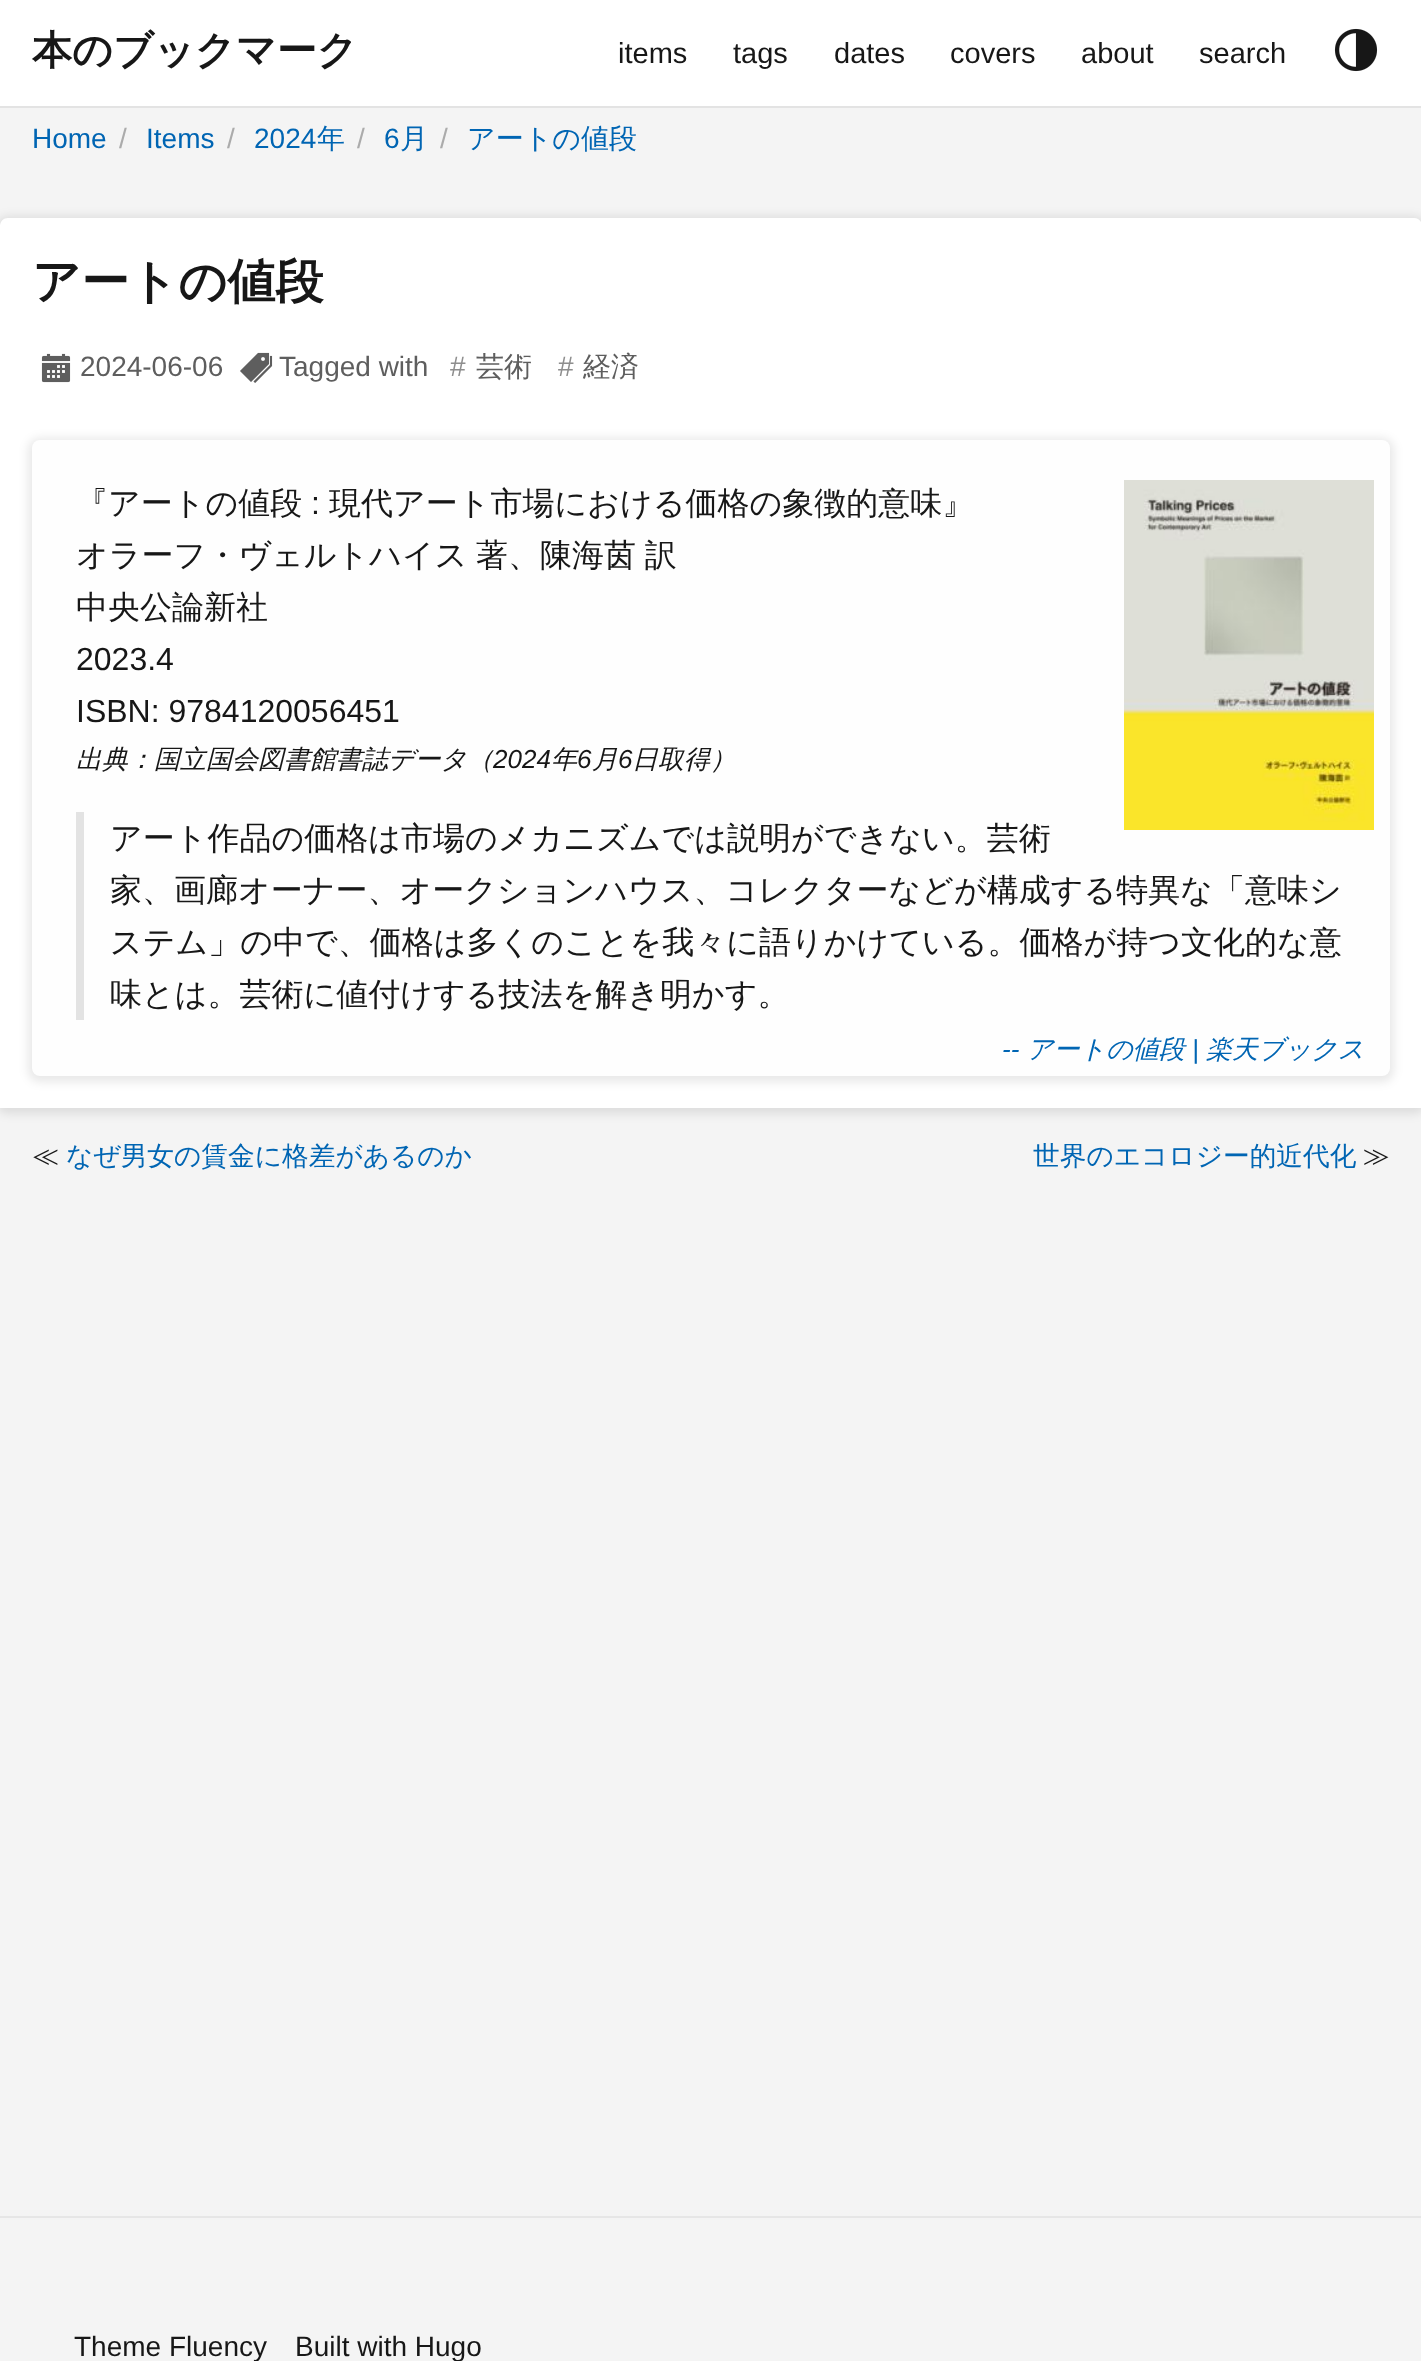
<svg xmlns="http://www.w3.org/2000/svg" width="1421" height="2361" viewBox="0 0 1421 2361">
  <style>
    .t1 { font: bold 40px WenQuanYi Zen Hei; fill: #171717; }
    .t2 { font: 29px Liberation Sans; fill: #171717; }
    .t3 { font: 28px Liberation Sans; fill: #0065b3; }
    .t4 { font: 28px Liberation Sans; fill: #ababab; }
    .t5 { font: 500 28px WenQuanYi Zen Hei; fill: #0065b3; }
    .t6 { font: bold 48px WenQuanYi Zen Hei; fill: #171717; }
    .t7 { font: 28px Liberation Sans; fill: #5e5e5e; }
    .t8 { font: 28px Liberation Sans; fill: #8e8e8e; }
    .t9 { font: 500 28px WenQuanYi Zen Hei; fill: #5e5e5e; }
    .t10 { font: 500 32px WenQuanYi Zen Hei; fill: #171717; }
    .t11 { font: 32px Liberation Sans; fill: #171717; }
    .t12 { font: italic 500 26px WenQuanYi Zen Hei; fill: #171717; }
    .t13 { font: italic 26px Liberation Sans; fill: #171717; }
    .t14 { font: italic 26px Liberation Sans; fill: #0065b3; }
    .t15 { font: italic 500 26px WenQuanYi Zen Hei; fill: #0065b3; }
    .t16 { font: 500 26.7px WenQuanYi Zen Hei; fill: #171717; }
    .t17 { font: 500 26.7px WenQuanYi Zen Hei; fill: #0065b3; }
    .t18 { font: 28px Liberation Sans; fill: #171717; }
  </style>
  <rect width="100%" height="100%" fill="#f4f4f4"/>
  <rect x="0" y="0" width="1421" height="106" fill="#fff"/>
  <rect x="0" y="106" width="1421" height="2" fill="#e3e3e3"/>
  <text x="32" y="64" class="t1">本のブックマーク</text>
  <text x="618" y="63" class="t2">items</text>
  <text x="733" y="63" class="t2">tags</text>
  <text x="834" y="63" class="t2">dates</text>
  <text x="950" y="63" class="t2">covers</text>
  <text x="1081" y="63" class="t2">about</text>
  <text x="1199" y="63" class="t2">search</text>
  <image x="1334" y="28" width="44" height="44" href="images/1.png"/>
  <text x="32" y="148" class="t3">Home</text>
  <text x="119" y="148" class="t4">/</text>
  <text x="146" y="148" class="t3">Items</text>
  <text x="227" y="148" class="t4">/</text>
  <text x="254" y="148" class="t3">2024</text>
  <text x="317" y="148" class="t5">年</text>
  <text x="357" y="148" class="t4">/</text>
  <text x="384" y="148" class="t3">6</text>
  <text x="400" y="148" class="t5">月</text>
  <text x="440" y="148" class="t4">/</text>
  <text x="467" y="148" class="t5">アートの値段</text>
  <rect x="-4" y="216" width="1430" height="898" rx="12" fill="#00000017" filter="blur(5px)"/>
  <path d="M8 218H1414C1418.5 218 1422 221.5 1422 226V1108H0V226C0 221.5 3.5 218 8 218Z" fill="#fff"/>
  <text x="32" y="298" class="t6">アートの値段</text>
  <image x="41" y="353" width="30" height="30" href="images/2.png"/>
  <text x="80" y="376" class="t7">2024-06-06</text>
  <image x="240" y="352" width="33" height="31" href="images/3.png"/>
  <text x="279" y="376" class="t7">Tagged with</text>
  <text x="450" y="376" class="t8">#</text>
  <text x="476" y="376" class="t9">芸術</text>
  <text x="558" y="376" class="t8">#</text>
  <text x="583" y="376" class="t9">経済</text>
  <rect x="28" y="438" width="1366" height="644" rx="12" fill="#00000017" filter="blur(5px)"/>
  <rect x="32" y="440" width="1358" height="636" rx="8" fill="#fefefe"/>
  <image x="1124" y="480" width="250" height="350" href="images/4.png"/>
  <text x="76" y="514" class="t10">『アートの値段</text>
  <text x="311" y="514" class="t11">:</text>
  <text x="329" y="514" class="t10">現代アート市場における価格の象徴的意味』</text>
  <text x="76" y="566" word-spacing="-1" class="t10">オラーフ・ヴェルトハイス 著、陳海茵 訳</text>
  <text x="76" y="618" class="t10">中央公論新社</text>
  <text x="76" y="670" class="t11">2023.4</text>
  <text x="76" y="722" class="t11">ISBN: 9784120056451</text>
  <text x="76" y="768" class="t12">出典：国立国会図書館書誌データ（</text>
  <text x="493" y="768" class="t13">2024</text>
  <text x="551" y="768" class="t12">年</text>
  <text x="577" y="768" class="t13">6</text>
  <text x="592" y="768" class="t12">月</text>
  <text x="618" y="768" class="t13">6</text>
  <text x="632" y="768" class="t12">日取得）</text>
  <rect x="76" y="812" width="8" height="208" fill="#e3e3e3"/>
  <text x="110" y="849" class="t10">アート作品の価格は市場のメカニズムでは説明ができない。芸術</text>
  <text x="110" y="901" class="t10">家、画廊オーナー、オークションハウス、コレクターなどが構成する特異な「意味シ</text>
  <text x="110" y="953" class="t10">ステム」の中で、価格は多くのことを我々に語りかけている。価格が持つ文化的な意</text>
  <text x="110" y="1005" class="t10">味とは。芸術に値付けする技法を解き明かす。</text>
  <text x="1002" y="1058" class="t14">--</text>
  <text x="1027" y="1058" class="t15">アートの値段</text>
  <text x="1192" y="1058" class="t14">|</text>
  <text x="1206" y="1058" class="t15">楽天ブックス</text>
  <text x="32" y="1165" class="t16">≪</text>
  <text x="66" y="1165" class="t17">なぜ男女の賃金に格差があるのか</text>
  <text x="1033" y="1165" class="t17">世界のエコロジー的近代化</text>
  <text x="1363" y="1165" class="t16">≫</text>
  <rect x="0" y="2216" width="1421" height="2" fill="#e6e6e6"/>
  <text x="74" y="2356" class="t18">Theme Fluency</text>
  <text x="295" y="2356" class="t18">Built with Hugo</text>
</svg>
